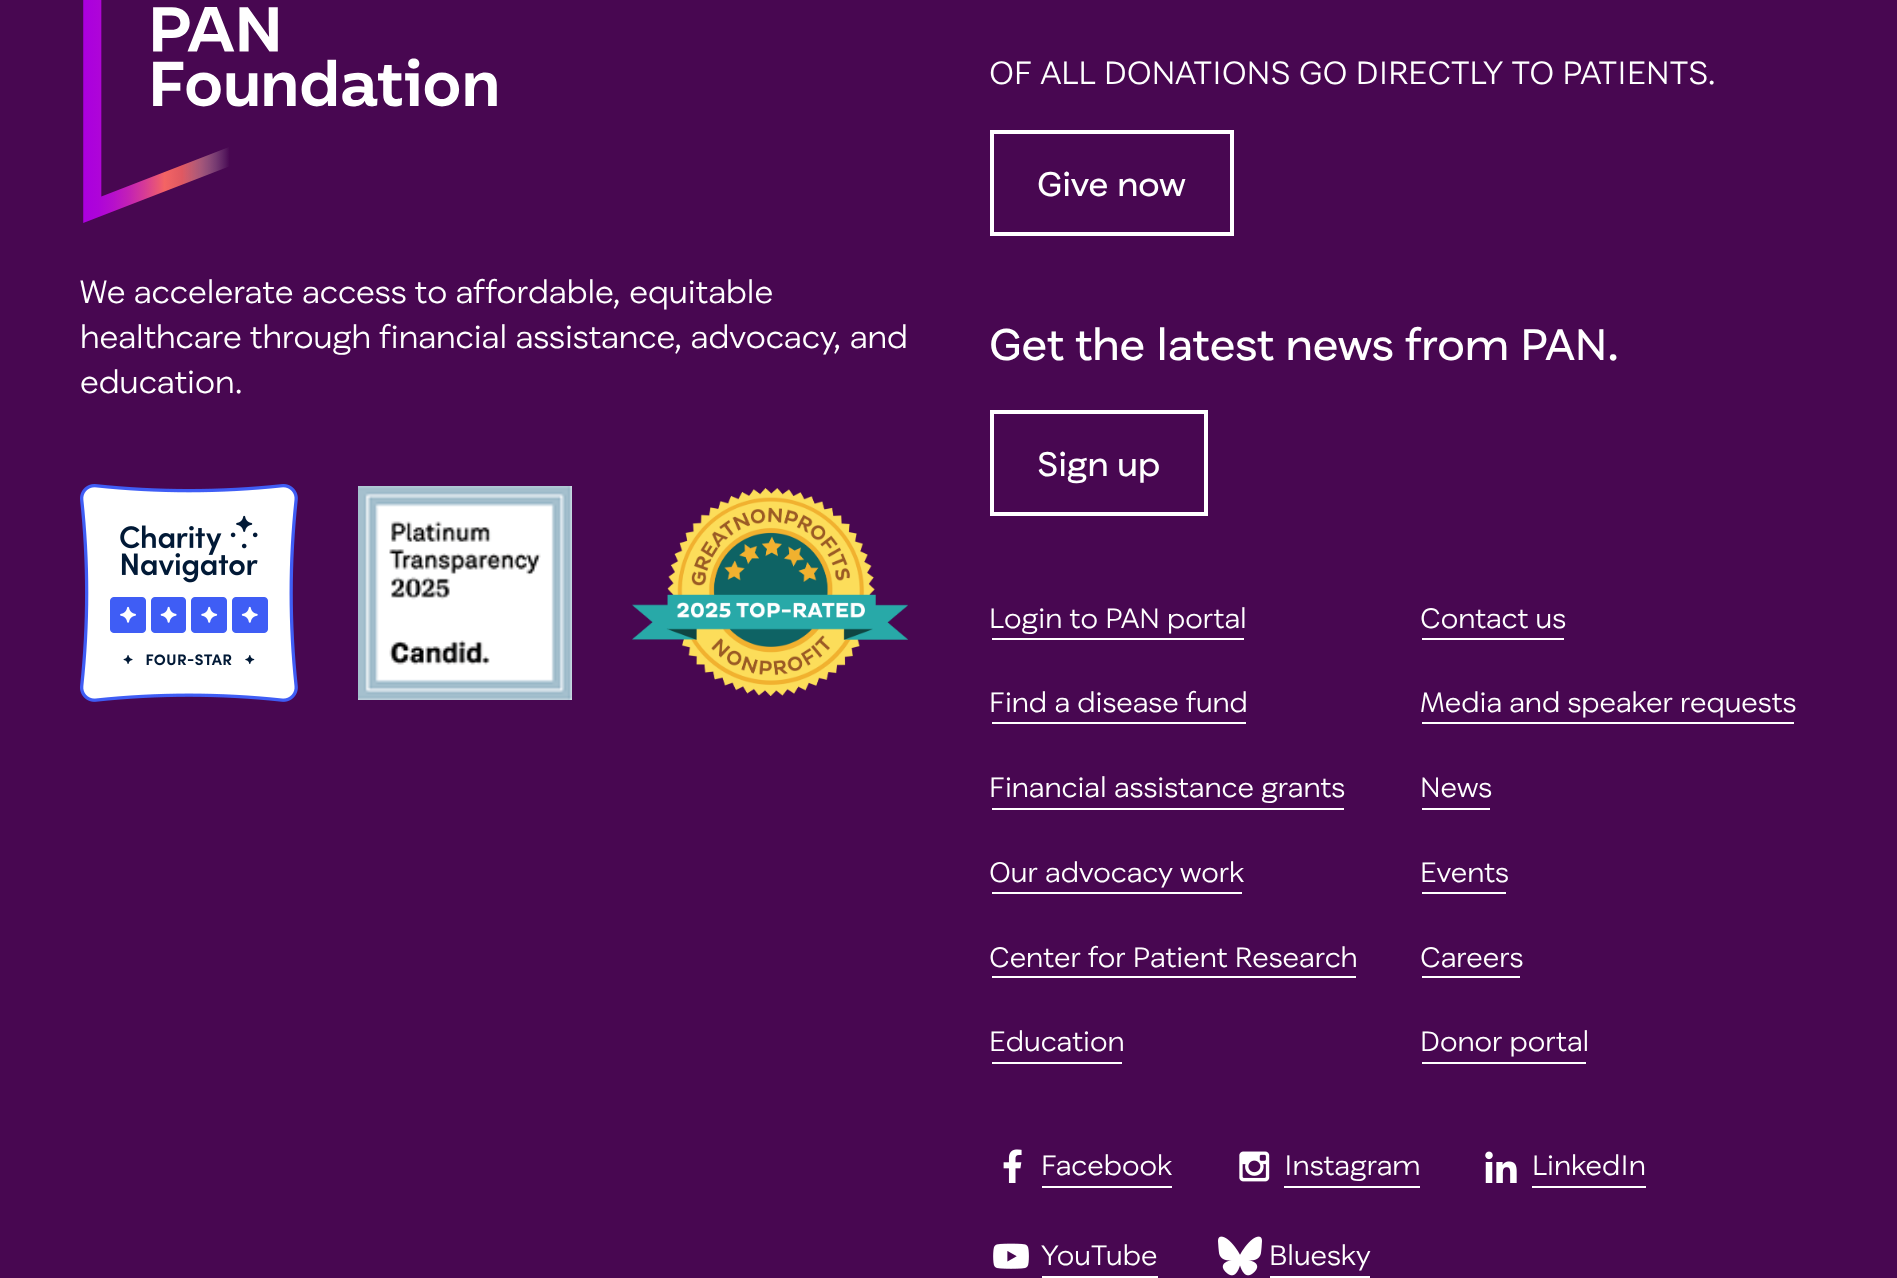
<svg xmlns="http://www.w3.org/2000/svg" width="1897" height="1278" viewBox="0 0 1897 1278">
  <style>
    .t1 { font: 300 32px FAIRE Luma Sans; fill: #fff; }
    .t2 { font: 34px FAIRE Luma Sans; fill: #fff; }
    .t3 { font: 44px FAIRE Luma Sans; fill: #fff; }
    .t4 { font: 300 28px FAIRE Luma Sans; fill: #fff; }
  </style>
  <rect width="100%" height="100%" fill="#480751"/>
  <image x="83" y="0" width="414" height="223" href="images/1.png"/>
  <text x="80" y="303" class="t1">We accelerate access to affordable, equitable</text>
  <text x="80" y="348" class="t1">healthcare through financial assistance, advocacy, and</text>
  <text x="80" y="393" class="t1">education.</text>
  <image x="80" y="484" width="218" height="218" href="images/2.png"/>
  <image x="358" y="486" width="214" height="214" href="images/3.png"/>
  <image x="632" y="488" width="276" height="208" href="images/4.png"/>
  <text x="989" y="84" class="t1">OF ALL DONATIONS GO DIRECTLY TO PATIENTS.</text>
  <rect x="992" y="132" width="240" height="102" fill="none" stroke="#fff" stroke-width="4"/>
  <text x="1037" y="196" class="t2">Give now</text>
  <text x="989" y="360" class="t3">Get the latest news from PAN.</text>
  <rect x="992" y="412" width="214" height="102" fill="none" stroke="#fff" stroke-width="4"/>
  <text x="1037" y="476" class="t2">Sign up</text>
  <text x="989" y="628" class="t4">Login to PAN portal</text>
  <rect x="992" y="638" width="252" height="2" fill="#fff"/>
  <text x="989" y="712" class="t4">Find a disease fund</text>
  <rect x="992" y="722" width="254" height="2" fill="#fff"/>
  <text x="989" y="797" class="t4">Financial assistance grants</text>
  <rect x="992" y="808" width="352" height="2" fill="#fff"/>
  <text x="989" y="882" class="t4">Our advocacy work</text>
  <rect x="992" y="892" width="250" height="2" fill="#fff"/>
  <text x="989" y="967" class="t4">Center for Patient Research</text>
  <rect x="992" y="976" width="364" height="2" fill="#fff"/>
  <text x="989" y="1051" class="t4">Education</text>
  <rect x="992" y="1062" width="130" height="2" fill="#fff"/>
  <text x="1420" y="628" class="t4">Contact us</text>
  <rect x="1422" y="638" width="142" height="2" fill="#fff"/>
  <text x="1420" y="712" class="t4">Media and speaker requests</text>
  <rect x="1422" y="722" width="372" height="2" fill="#fff"/>
  <text x="1420" y="797" class="t4">News</text>
  <rect x="1422" y="808" width="68" height="2" fill="#fff"/>
  <text x="1420" y="882" class="t4">Events</text>
  <rect x="1422" y="892" width="84" height="2" fill="#fff"/>
  <text x="1420" y="967" class="t4">Careers</text>
  <rect x="1422" y="976" width="98" height="2" fill="#fff"/>
  <text x="1420" y="1051" class="t4">Donor portal</text>
  <rect x="1422" y="1062" width="164" height="2" fill="#fff"/>
  <image x="1003" y="1149" width="19" height="34" href="images/5.png"/>
  <rect x="1042" y="1186" width="130" height="2" fill="#fff"/>
  <text x="1041" y="1175" class="t4">Facebook</text>
  <image x="1239" y="1151" width="31" height="31" href="images/6.png"/>
  <rect x="1284" y="1186" width="136" height="2" fill="#fff"/>
  <text x="1284" y="1175" class="t4">Instagram</text>
  <image x="1485" y="1151" width="32" height="32" href="images/7.png"/>
  <rect x="1532" y="1186" width="114" height="2" fill="#fff"/>
  <text x="1532" y="1175" class="t4">LinkedIn</text>
  <image x="993" y="1243" width="36" height="26" href="images/8.png"/>
  <rect x="1042" y="1276" width="116" height="2" fill="#fff"/>
  <text x="1041" y="1265" class="t4">YouTube</text>
  <image x="1218" y="1236" width="44" height="40" href="images/9.png"/>
  <rect x="1270" y="1276" width="100" height="2" fill="#fff"/>
  <text x="1269" y="1265" class="t4">Bluesky</text>
</svg>
